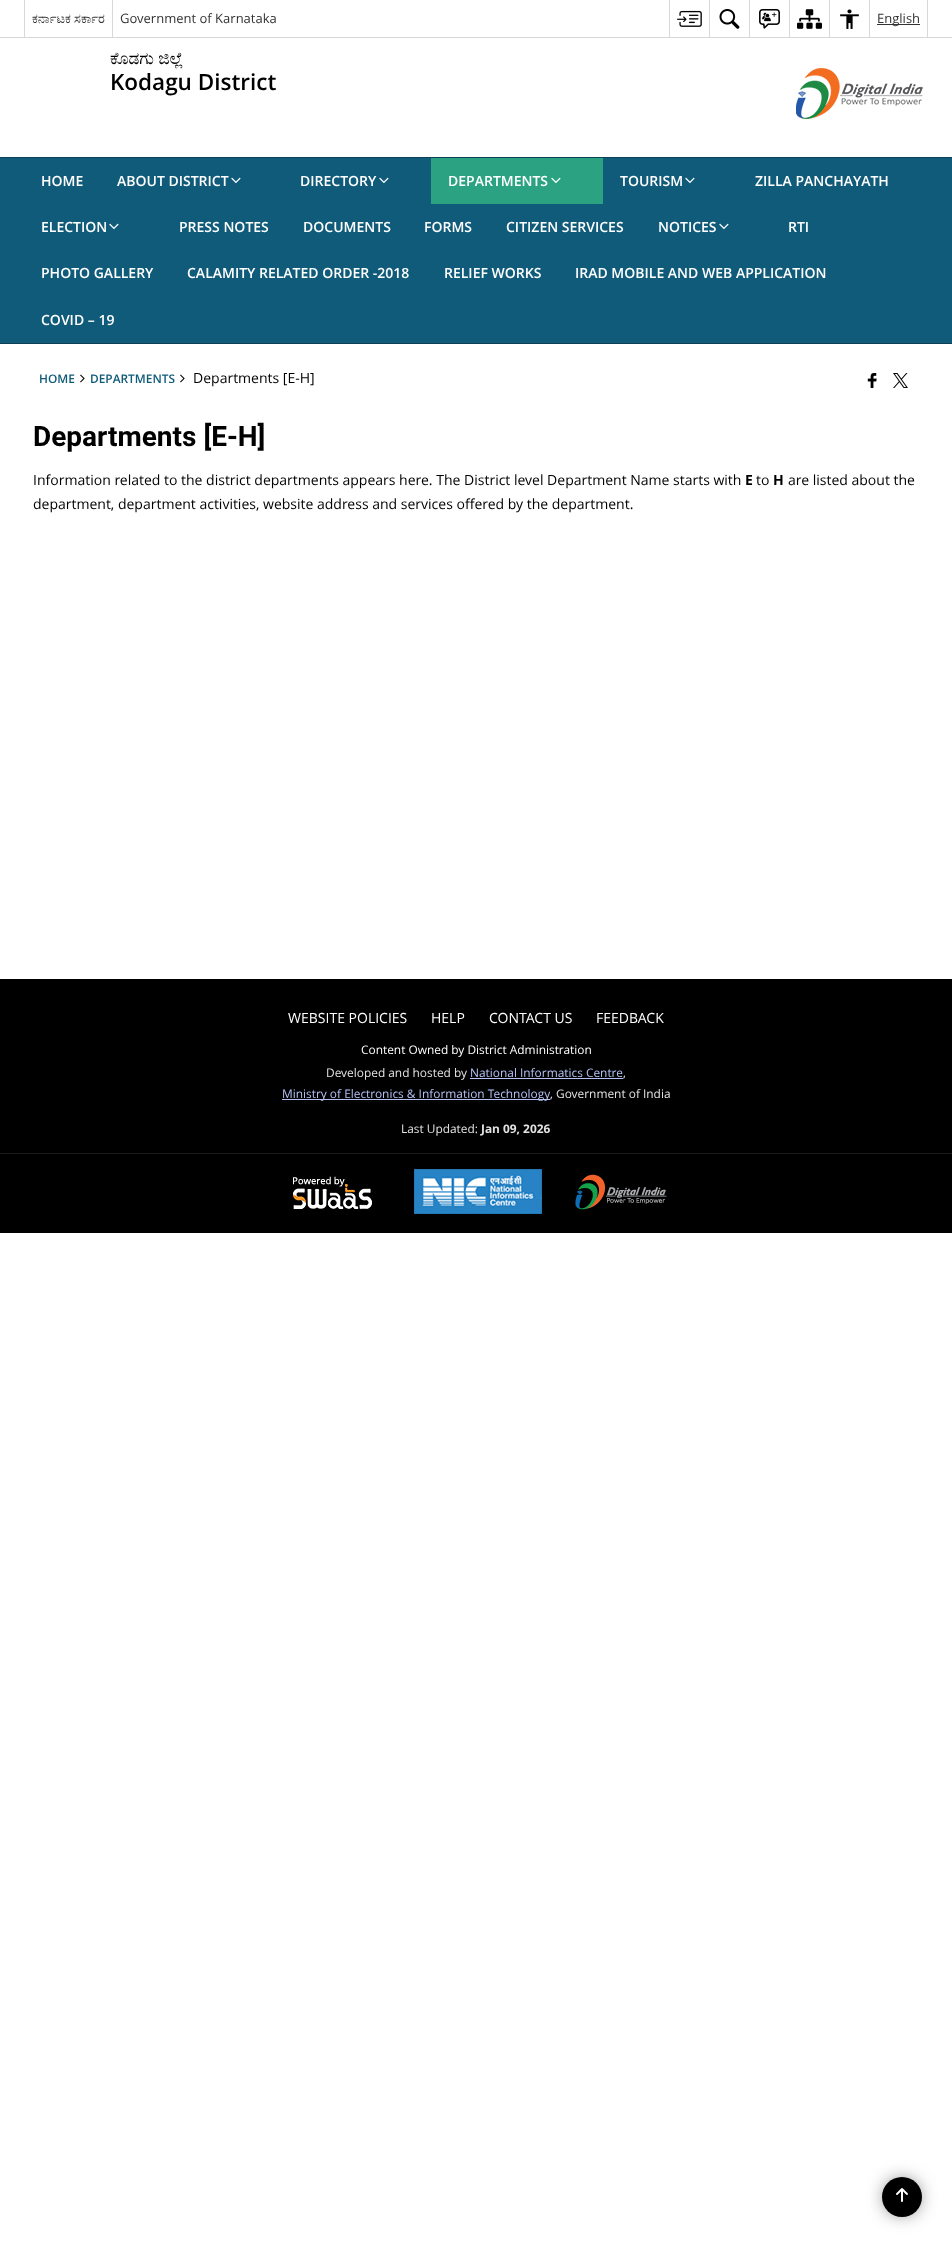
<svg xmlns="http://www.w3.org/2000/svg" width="952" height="2247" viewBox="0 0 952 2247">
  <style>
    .t1 { font: 13px FreeSerif; fill: #333; }
    .t2 { font: 13px Open Sans; fill: #333; }
    .t3 { font: 17px FreeSerif; fill: #000; }
    .t4 { font: 600 22.5px Open Sans; fill: #000; }
    .t5 { font: 600 14px Open Sans; fill: #fff; }
    .t6 { font: 600 11.9px Open Sans; fill: #105b7a; }
    .t7 { font: 14px Open Sans; fill: #000; }
    .t8 { font: bold 28px Roboto; fill: #000; }
    .t9 { font: bold 14px Open Sans; fill: #000; }
    .t10 { font: 14px Open Sans; fill: #fff; }
    .t11 { font: 11.9px Open Sans; fill: #fff; }
    .t12 { font: 11.9px Open Sans; fill: #e2e2e1; }
    .t13 { font: 11.9px Open Sans; fill: #b4c1f5; }
    .t14 { font: bold 11.9px Open Sans; fill: #e2e2e1; }
  </style>
  <rect width="100%" height="100%" fill="#fff"/>
  <rect x="0" y="37" width="952" height="1" fill="#d8d8d8"/>
  <rect x="24" y="0" width="1" height="37" fill="#d8d8d8"/>
  <text x="32" y="23" class="t1">ಕರ್ನಾಟಕ ಸರ್ಕಾರ</text>
  <rect x="112" y="0" width="1" height="37" fill="#d8d8d8"/>
  <text x="120" y="23" class="t2">Government of Karnataka</text>
  <rect x="669" y="0" width="1" height="37" fill="#d8d8d8"/>
  <image x="677" y="10" width="25" height="17" href="images/1.png"/>
  <rect x="709" y="0" width="1" height="37" fill="#d8d8d8"/>
  <image x="719" y="9" width="21" height="20" href="images/2.png"/>
  <rect x="749" y="0" width="1" height="37" fill="#d8d8d8"/>
  <image x="759" y="9" width="21" height="20" href="images/3.png"/>
  <rect x="789" y="0" width="1" height="37" fill="#d8d8d8"/>
  <image x="797" y="9" width="25" height="20" href="images/4.png"/>
  <rect x="829" y="0" width="1" height="37" fill="#d8d8d8"/>
  <image x="840" y="9" width="19" height="20" href="images/5.png"/>
  <rect x="927" y="0" width="1" height="37" fill="#d8d8d8"/>
  <rect x="869" y="0" width="1" height="37" fill="#d8d8d8"/>
  <rect x="877" y="24" width="43" height="1" fill="#333"/>
  <text x="877" y="23" class="t2">English</text>
  <text x="110" y="64" class="t3">ಕೊಡಗು ಜಿಲ್ಲೆ</text>
  <text x="110" y="90" class="t4">Kodagu District</text>
  <image x="796" y="68" width="127" height="51" href="images/6.png"/>
  <rect x="0" y="158" width="952" height="185" fill="#105b7a"/>
  <rect x="0" y="157" width="952" height="1" fill="#0b4055"/>
  <rect x="0" y="343" width="952" height="1" fill="#0b4055"/>
  <text x="41" y="186" class="t5">HOME</text>
  <text x="117" y="186" class="t5">ABOUT DISTRICT</text>
  <image x="231" y="177" width="10" height="7" href="images/7.png"/>
  <text x="300" y="186" class="t5">DIRECTORY</text>
  <image x="379" y="177" width="10" height="7" href="images/7.png"/>
  <rect x="431" y="158" width="172" height="46" fill="#2ba282"/>
  <text x="448" y="186" class="t5">DEPARTMENTS</text>
  <image x="551" y="177" width="10" height="7" href="images/8.png"/>
  <text x="620" y="186" class="t5">TOURISM</text>
  <image x="685" y="177" width="10" height="7" href="images/7.png"/>
  <text x="755" y="186" class="t5">ZILLA PANCHAYATH</text>
  <text x="41" y="232" class="t5">ELECTION</text>
  <image x="109" y="223" width="10" height="7" href="images/7.png"/>
  <text x="179" y="232" class="t5">PRESS NOTES</text>
  <text x="303" y="232" class="t5">DOCUMENTS</text>
  <text x="424" y="232" class="t5">FORMS</text>
  <text x="506" y="232" class="t5">CITIZEN SERVICES</text>
  <text x="658" y="232" class="t5">NOTICES</text>
  <image x="719" y="223" width="10" height="7" href="images/7.png"/>
  <text x="788" y="232" class="t5">RTI</text>
  <text x="41" y="278" class="t5">PHOTO GALLERY</text>
  <text x="187" y="278" class="t5">CALAMITY RELATED ORDER -2018</text>
  <text x="444" y="278" class="t5">RELIEF WORKS</text>
  <text x="575" y="278" class="t5">IRAD MOBILE AND WEB APPLICATION</text>
  <text x="41" y="325" class="t5">COVID – 19</text>
  <text x="39" y="383" class="t6">HOME</text>
  <image x="80" y="374" width="5" height="9" href="images/9.png"/>
  <text x="90" y="383" class="t6">DEPARTMENTS</text>
  <image x="180" y="374" width="5" height="9" href="images/9.png"/>
  <text x="193" y="383" class="t7">Departments [E-H]</text>
  <image x="867" y="373" width="10" height="15" href="images/10.png"/>
  <image x="893" y="373" width="15" height="15" href="images/11.png"/>
  <text x="33" y="446" class="t8">Departments [E-H]</text>
  <text x="33" y="485" class="t7">Information related to the district departments appears here. The District level Department Name starts with</text>
  <text x="745" y="485" class="t9">E</text>
  <text x="756" y="485" class="t7">to</text>
  <text x="773" y="485" class="t9">H</text>
  <text x="788" y="485" class="t7">are listed about the</text>
  <text x="33" y="509" class="t7">department, department activities, website address and services offered by the department.</text>
  <rect x="0" y="979" width="952" height="254" fill="#000"/>
  <text x="288" y="1023" class="t10">WEBSITE POLICIES</text>
  <text x="431" y="1023" class="t10">HELP</text>
  <text x="489" y="1023" class="t10">CONTACT US</text>
  <text x="596" y="1023" class="t10">FEEDBACK</text>
  <text x="361" y="1054" class="t11">Content Owned by District Administration</text>
  <text x="326" y="1077" class="t12">Developed and hosted by</text>
  <text x="470" y="1077" class="t13">National Informatics Centre</text>
  <rect x="470" y="1078" width="153" height="1" fill="#b4c1f5"/>
  <text x="623" y="1077" class="t12">,</text>
  <rect x="282" y="1099" width="268" height="1" fill="#b4c1f5"/>
  <text x="282" y="1098" class="t13">Ministry of Electronics &amp; Information Technology</text>
  <text x="550" y="1098" class="t12">, Government of India</text>
  <text x="401" y="1133" class="t12">Last Updated:</text>
  <text x="481" y="1133" class="t14">Jan 09, 2026</text>
  <rect x="0" y="1153" width="952" height="1" fill="#1a1a1a"/>
  <image x="293" y="1176" width="79" height="33" href="images/12.png"/>
  <image x="414" y="1169" width="128" height="45" href="images/13.png"/>
  <image x="575" y="1174" width="92" height="36" href="images/14.png"/>
  <rect x="887" y="2182" width="30" height="30" rx="15" fill="#3c3c3c" filter="blur(9.5px)"/>
  <circle cx="902" cy="2197" r="20" fill="#000"/>
  <image x="896" y="2188" width="12" height="14" href="images/15.png"/>
</svg>
